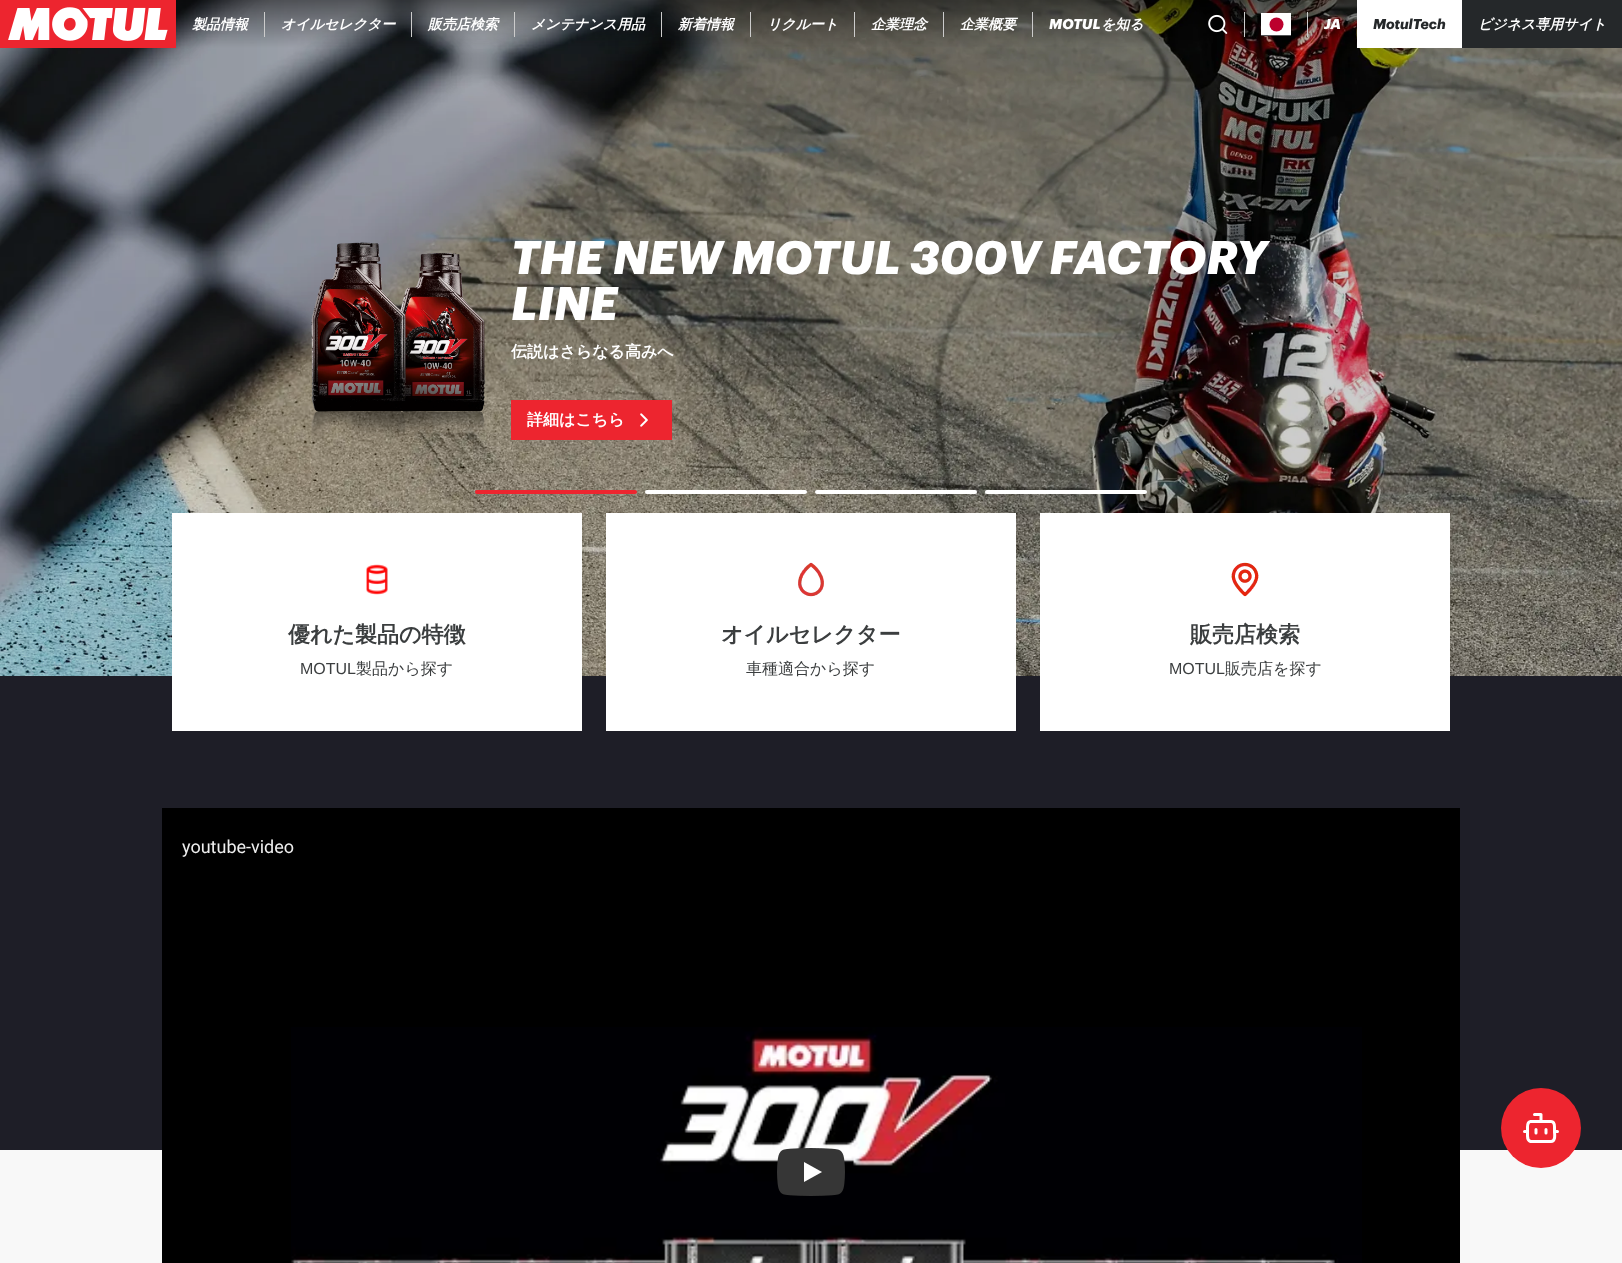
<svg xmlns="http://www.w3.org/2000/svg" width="1622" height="1263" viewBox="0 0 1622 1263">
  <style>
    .t1 { font: italic bold 14px WenQuanYi Zen Hei; fill: #fff; }
    .t2 { font: italic bold 14px Graphik; fill: #fff; }
    .t3 { font: italic bold 14px Graphik; fill: #25282a; }
    .t4 { font: italic bold 46px Graphik; fill: #fff; }
    .t5 { font: bold 16px WenQuanYi Zen Hei; fill: #fff; }
    .t6 { font: bold 22px WenQuanYi Zen Hei; fill: #3b3e3f; }
    .t7 { font: 16px Liberation Sans; fill: #3b3e3f; }
    .t8 { font: 500 16px WenQuanYi Zen Hei; fill: #3b3e3f; }
    .t9 { font: 18px Roboto; fill: #eee; }
  </style>
  <rect width="100%" height="100%" fill="#f8f8f8"/>
  <image x="0" y="0" width="1622" height="676" href="images/3.png"/>
  <rect x="0" y="0" width="176" height="48" fill="#ed252f"/>
  <image x="8" y="7" width="160" height="34" href="images/1.png"/>
  <text x="192" y="29" class="t1">製品情報</text>
  <rect x="264" y="12" width="1" height="25" fill="#ccc"/>
  <text x="281" y="29" class="t1">オイルセレクター</text>
  <rect x="411" y="12" width="1" height="25" fill="#ccc"/>
  <text x="428" y="29" class="t1">販売店検索</text>
  <rect x="514" y="12" width="1" height="25" fill="#ccc"/>
  <text x="531" y="29" class="t1">メンテナンス用品</text>
  <rect x="661" y="12" width="1" height="25" fill="#ccc"/>
  <text x="678" y="29" class="t1">新着情報</text>
  <rect x="750" y="12" width="1" height="25" fill="#ccc"/>
  <text x="767" y="29" class="t1">リクルート</text>
  <rect x="854" y="12" width="1" height="25" fill="#ccc"/>
  <text x="871" y="29" class="t1">企業理念</text>
  <rect x="943" y="12" width="1" height="25" fill="#ccc"/>
  <text x="960" y="29" class="t1">企業概要</text>
  <rect x="1032" y="12" width="1" height="25" fill="#ccc"/>
  <text x="1049" y="29" class="t2">MOTUL</text>
  <text x="1101" y="29" class="t1">を知る</text>
  <image x="1208" y="14" width="20" height="20" href="images/2.png"/>
  <rect x="1244" y="12" width="1" height="25" fill="#ccc"/>
  <rect x="1261" y="13" width="30" height="23" fill="#515355" filter="blur(0.5px)"/>
  <rect x="1261" y="13" width="30" height="22" fill="#fff"/>
  <circle cx="1276.5" cy="24.5" r="7" fill="#bc002d"/>
  <rect x="1307" y="12" width="1" height="25" fill="#ccc"/>
  <text x="1324" y="29" class="t2">JA</text>
  <rect x="1357" y="0" width="105" height="48" fill="#fff"/>
  <text x="1373" y="29" class="t3">MotulTech</text>
  <rect x="1462" y="0" width="160" height="48" fill="#25282a"/>
  <text x="1478" y="29" class="t1">ビジネス専用サイト</text>
  <image x="311" y="242" width="174" height="198" href="images/4.png"/>
  <text x="511" y="274" class="t4">THE NEW MOTUL 300V FACTORY</text>
  <text x="511" y="320" class="t4">LINE</text>
  <text x="511" y="357" class="t5">伝説はさらなる高みへ</text>
  <rect x="511" y="400" width="161" height="40" fill="#ed252f"/>
  <text x="527" y="425" class="t5">詳細はこちら</text>
  <image x="640" y="413" width="8" height="14" href="images/5.png"/>
  <rect x="475" y="490" width="162" height="4" rx="2" fill="#ed252f"/>
  <rect x="645" y="490" width="162" height="4" rx="2" fill="#fff"/>
  <rect x="815" y="490" width="162" height="4" rx="2" fill="#fff"/>
  <rect x="985" y="490" width="162" height="4" rx="2" fill="#fff"/>
  <rect x="0" y="676" width="1622" height="474" fill="#1e1e27"/>
  <rect x="172" y="513" width="410" height="218" fill="#fff"/>
  <image x="366" y="564" width="22" height="31" href="images/6.png"/>
  <text x="288" y="642" class="t6">優れた製品の特徴</text>
  <text x="300" y="674" class="t7">MOTUL</text>
  <text x="356" y="674" class="t8">製品から探す</text>
  <rect x="606" y="513" width="410" height="218" fill="#fff"/>
  <image x="798" y="562" width="26" height="35" href="images/7.png"/>
  <text x="721" y="642" class="t6">オイルセレクター</text>
  <text x="746" y="674" class="t8">車種適合から探す</text>
  <rect x="1040" y="513" width="410" height="218" fill="#fff"/>
  <image x="1231" y="562" width="28" height="35" href="images/8.png"/>
  <text x="1190" y="642" class="t6">販売店検索</text>
  <text x="1169" y="674" class="t7">MOTUL</text>
  <text x="1225" y="674" class="t8">販売店を探す</text>
  <rect x="162" y="808" width="1298" height="455" fill="#000"/>
  <image x="291" y="1027" width="1071" height="236" href="images/9.png"/>
  <text x="182" y="853" class="t9">youtube-video</text>
  <image x="777" y="1148" width="68" height="48" href="images/10.png"/>
  <circle cx="1541" cy="1128" r="40" fill="#ed252f"/>
  <path d="M1541 1121.5V1114.5H1534.5M1551 1121.5H1530.5C1527.5 1122 1527.5 1124.5 1527.5 1127V1136C1527.5 1138 1527.5 1140.5 1530.5 1141.5H1551C1556 1141.5 1554.5 1134 1554.5 1131.5V1127C1554.5 1124.5 1554 1121.5 1551 1121.5ZM1524.5 1131.5H1527.5M1554.5 1131.5H1557.5M1546 1129.5V1133M1536 1129.5V1133" fill="none" stroke="#fff" stroke-width="3" stroke-linecap="round" stroke-linejoin="round"/>
</svg>
